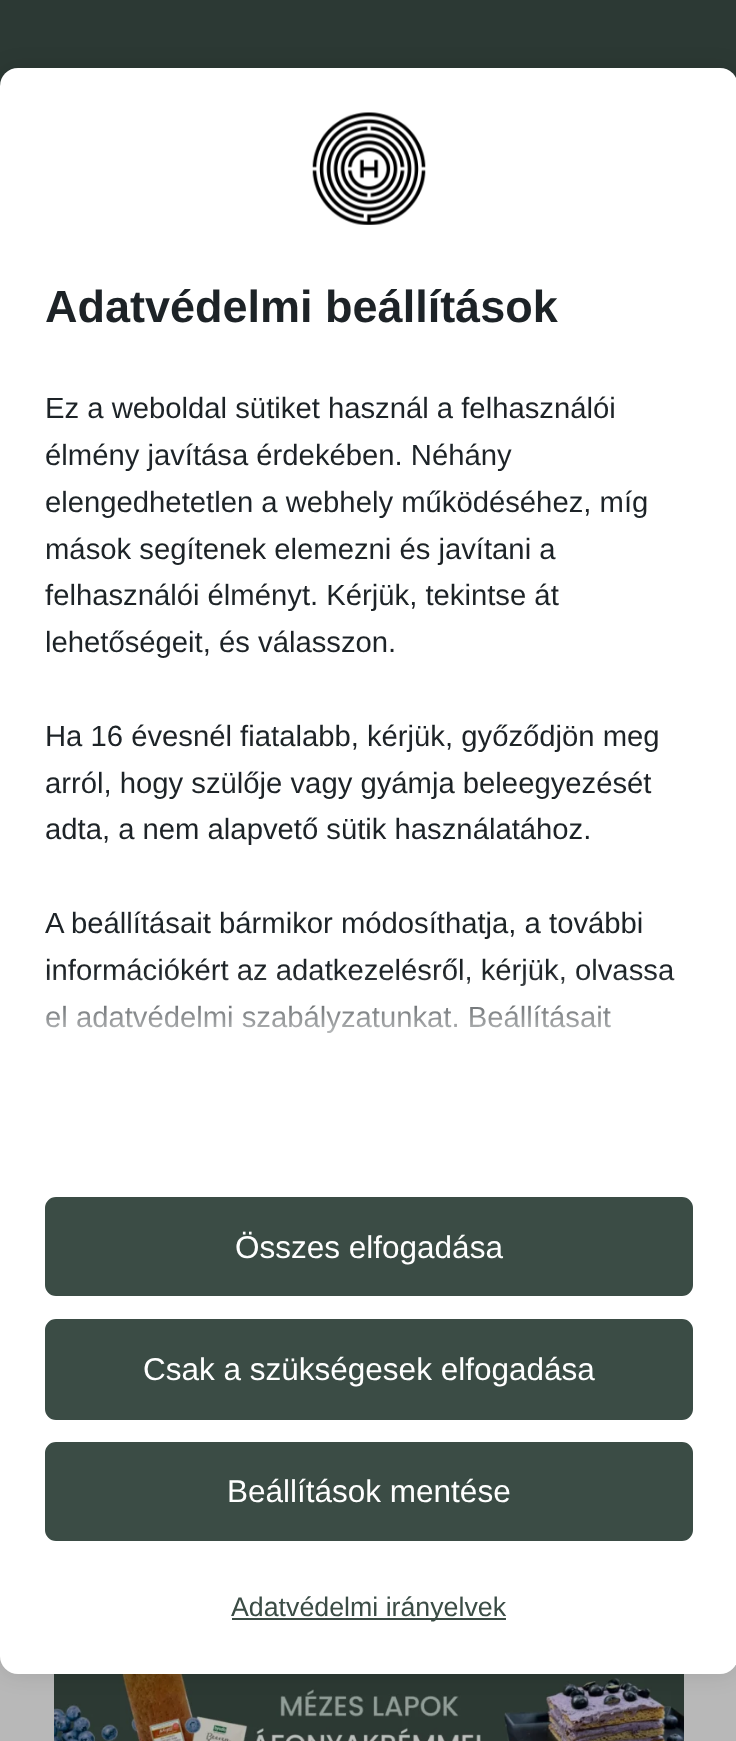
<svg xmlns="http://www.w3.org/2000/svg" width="736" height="1741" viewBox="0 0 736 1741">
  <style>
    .t1 { font: bold 45px Liberation Sans; fill: #1d2327; }
    .t2 { font: 29.25px Liberation Sans; fill: #1d2327; }
    .t3 { font: 31.5px Liberation Sans; fill: #fff; }
    .t4 { font: 26.75px Liberation Sans; fill: #3b4c45; }
  </style>
  <defs>
    <linearGradient id="g1" gradientUnits="userSpaceOnUse" x1="369" y1="1062" x2="369" y2="972"><stop offset="0" stop-color="#fff"/><stop offset="1" stop-color="#fff" stop-opacity="0"/></linearGradient>
  </defs>
  <rect width="100%" height="100%" fill="#b8b8b8"/>
  <rect x="0" y="0" width="736" height="86" fill="#2c3934"/>
  <image x="54" y="1674" width="630" height="67" href="images/1.png"/>
  <rect x="0" y="68" width="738" height="1606" rx="18" fill="#0000001a" filter="blur(11px)"/>
  <rect x="0" y="68" width="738" height="1606" rx="18" fill="#fff"/>
  <image x="312" y="112" width="114" height="113" href="images/2.png"/>
  <text x="45" y="322" class="t1">Adatvédelmi beállítások</text>
  <text x="45" y="418" class="t2">Ez a weboldal sütiket használ a felhasználói</text>
  <text x="45" y="465" class="t2">élmény javítása érdekében. Néhány</text>
  <text x="45" y="512" class="t2">elengedhetetlen a webhely működéséhez, míg</text>
  <text x="45" y="559" class="t2">mások segítenek elemezni és javítani a</text>
  <text x="45" y="605" class="t2">felhasználói élményt. Kérjük, tekintse át</text>
  <text x="45" y="652" class="t2">lehetőségeit, és válasszon.</text>
  <text x="45" y="746" class="t2">Ha 16 évesnél fiatalabb, kérjük, győződjön meg</text>
  <text x="45" y="793" class="t2">arról, hogy szülője vagy gyámja beleegyezését</text>
  <text x="45" y="839" class="t2">adta, a nem alapvető sütik használatához.</text>
  <text x="45" y="933" class="t2">A beállításait bármikor módosíthatja, a további</text>
  <text x="45" y="980" class="t2">információkért az adatkezelésről, kérjük, olvassa</text>
  <text x="45" y="1027" class="t2">el adatvédelmi szabályzatunkat. Beállításait</text>
  <rect x="46" y="974" width="628" height="60" fill="url(#g1)"/>
  <rect x="46" y="1198" width="646" height="97" rx="10" fill="#3b4c45" stroke="#3b4c45" stroke-width="2"/>
  <text x="235" y="1258" class="t3">Összes elfogadása</text>
  <rect x="46" y="1320" width="646" height="99" rx="10" fill="#3b4c45" stroke="#3b4c45" stroke-width="2"/>
  <text x="143" y="1380" class="t3">Csak a szükségesek elfogadása</text>
  <rect x="46" y="1443" width="646" height="97" rx="10" fill="#3b4c45" stroke="#3b4c45" stroke-width="2"/>
  <text x="227" y="1502" class="t3">Beállítások mentése</text>
  <rect x="232" y="1618" width="274" height="2" fill="#3b4c45"/>
  <text x="231" y="1616" class="t4">Adatvédelmi irányelvek</text>
</svg>
